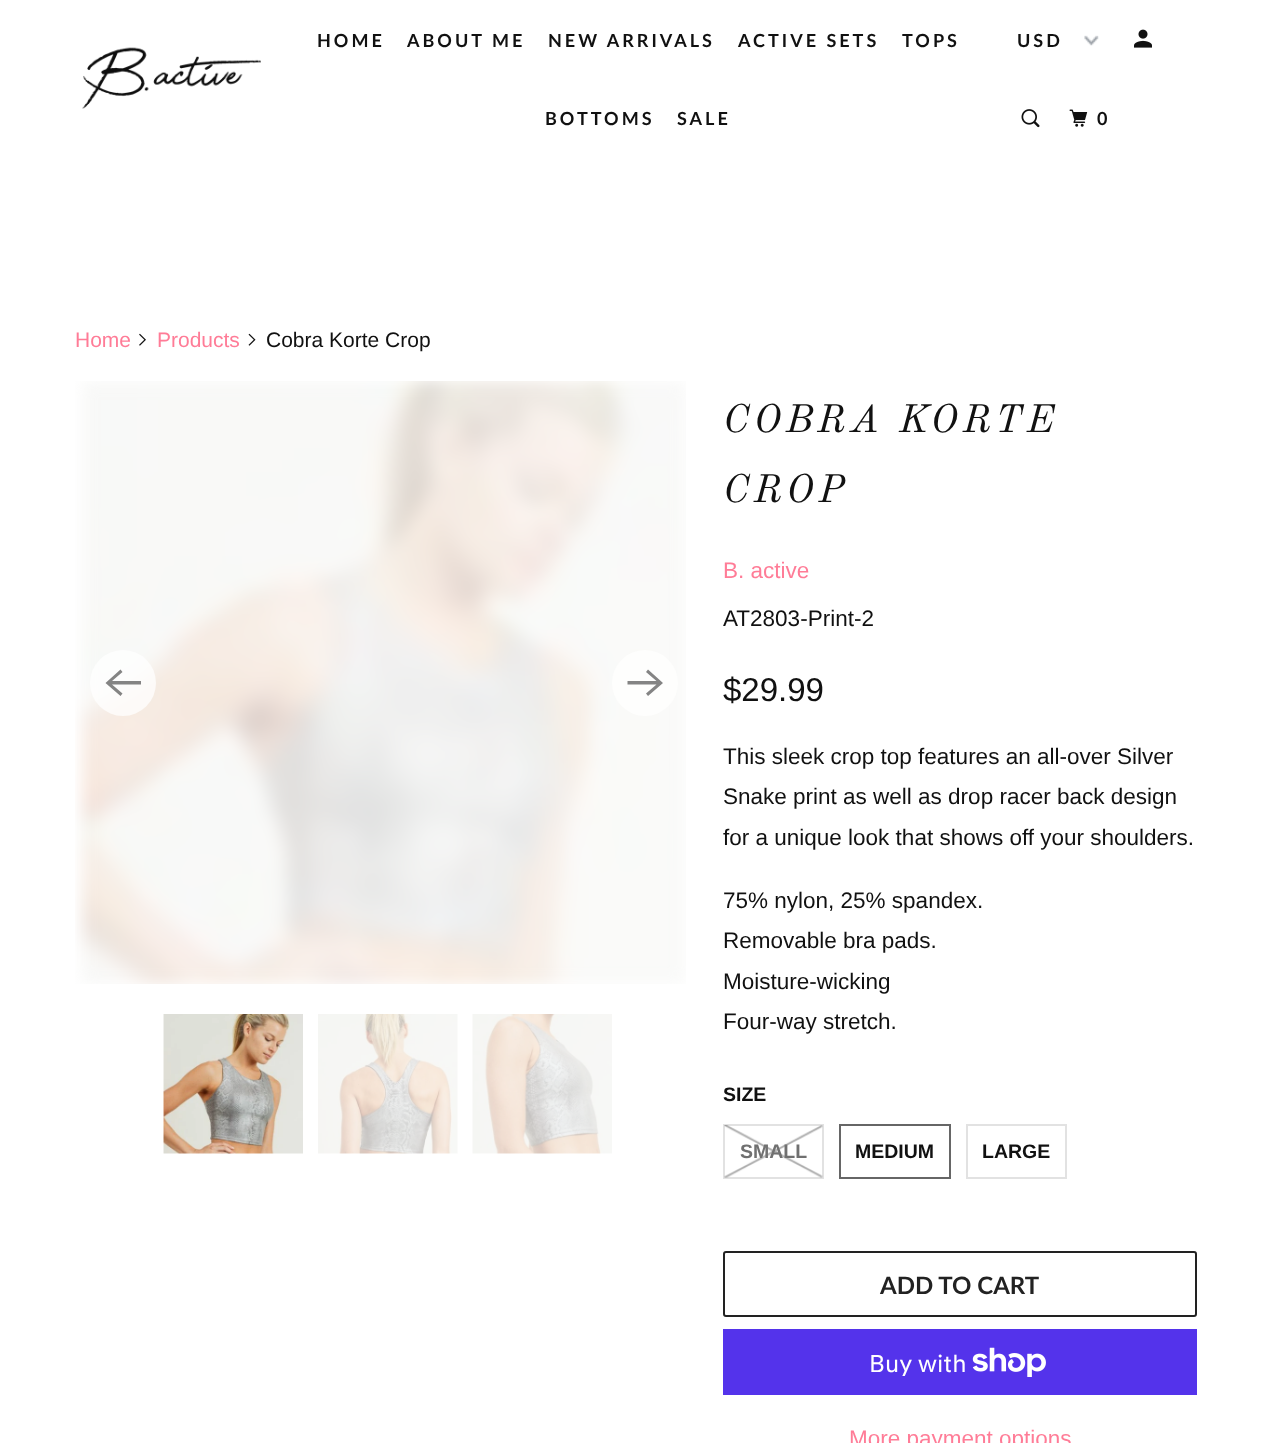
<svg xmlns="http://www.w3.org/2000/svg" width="1271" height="1443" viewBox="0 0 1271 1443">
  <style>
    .t1 { font: bold 18px Lato; letter-spacing: 3px; fill: #111; }
    .t2 { font: 21px Liberation Sans; fill: #ff7c97; }
    .t3 { font: 21px Liberation Sans; fill: #111; }
    .t4 { font: italic 39px Old Standard TT; letter-spacing: 4.5px; fill: #111; }
    .t5 { font: 22.5px Liberation Sans; fill: #ff7c97; }
    .t6 { font: 22.5px Liberation Sans; fill: #111; }
    .t7 { font: 33px Liberation Sans; fill: #111; }
    .t8 { font: bold 19.5px Liberation Sans; fill: #111; }
    .t9 { font: bold 19.5px Liberation Sans; fill: #707070; }
    .t10 { font: bold 24px Lato; fill: #222; }
    .t11 { font: 24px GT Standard; fill: #fff; }
  </style>
  <rect width="100%" height="100%" fill="#fff"/>
  <image x="82" y="47" width="179" height="62" href="images/1.png"/>
  <text x="317" y="47" class="t1">HOME</text>
  <text x="407" y="47" class="t1">ABOUT ME</text>
  <text x="548" y="47" class="t1">NEW ARRIVALS</text>
  <text x="738" y="47" class="t1">ACTIVE SETS</text>
  <text x="902" y="47" class="t1">TOPS</text>
  <text x="545" y="125" class="t1">BOTTOMS</text>
  <text x="677" y="125" class="t1">SALE</text>
  <image x="1084" y="35" width="15" height="11" href="images/2.png"/>
  <text x="1017" y="47" class="t1">USD</text>
  <image x="1134" y="29" width="18" height="19" href="images/3.png"/>
  <image x="1021" y="109" width="19" height="19" href="images/4.png"/>
  <image x="1069" y="109" width="19" height="18" href="images/5.png"/>
  <text x="1097" y="125" class="t1">0</text>
  <text x="75" y="347" class="t2">Home</text>
  <image x="139" y="333" width="7" height="13" href="images/6.png"/>
  <text x="157" y="347" class="t2">Products</text>
  <image x="248" y="333" width="8" height="13" href="images/7.png"/>
  <text x="266" y="347" class="t3">Cobra Korte Crop</text>
  <image x="75" y="381" width="611" height="603" href="images/8.png"/>
  <circle cx="123" cy="683" r="33" fill="#ffffffbf"/>
  <path d="M141 681H112L122.5 672L120.5 669.5L105.5 683L120.5 696L122.5 693.5L112 684.5H141Z" fill="#33333399"/>
  <circle cx="645" cy="683" r="33" fill="#fefefd"/>
  <path d="M627.5 684.5H656.5L646 693.5L648 696L663 683L648 669.5L646 672L656.5 681H627.5Z" fill="#848484"/>
  <image x="163" y="1014" width="140" height="140" href="images/9.png"/>
  <image x="318" y="1014" width="140" height="140" href="images/10.png"/>
  <image x="472" y="1014" width="140" height="140" href="images/11.png"/>
  <text x="723" y="432" class="t4">COBRA KORTE</text>
  <text x="723" y="502" class="t4">CROP</text>
  <text x="723" y="578" class="t5">B. active</text>
  <text x="723" y="626" class="t6">AT2803-Print-2</text>
  <text x="723" y="701" class="t7">$29.99</text>
  <text x="723" y="764" class="t6">This sleek crop top features an all-over Silver</text>
  <text x="723" y="804" class="t6">Snake print as well as drop racer back design</text>
  <text x="723" y="845" class="t6">for a unique look that shows off your shoulders.</text>
  <text x="723" y="908" class="t6">75% nylon, 25% spandex.</text>
  <text x="723" y="948" class="t6">Removable bra pads.</text>
  <text x="723" y="989" class="t6">Moisture-wicking</text>
  <text x="723" y="1029" class="t6">Four-way stretch.</text>
  <text x="723" y="1101" class="t8">SIZE</text>
  <rect x="724" y="1125" width="99" height="53" fill="none" stroke="#e2e2e2" stroke-width="2"/>
  <text x="740" y="1158" class="t9">SMALL</text>
  <image x="724" y="1125" width="99" height="53" href="images/12.png"/>
  <rect x="840" y="1125" width="110" height="53" fill="none" stroke="#666" stroke-width="2"/>
  <text x="855" y="1158" class="t8">MEDIUM</text>
  <rect x="967" y="1125" width="99" height="53" fill="none" stroke="#e2e2e2" stroke-width="2"/>
  <text x="982" y="1158" class="t8">LARGE</text>
  <rect x="724" y="1252" width="472" height="64" rx="2" fill="none" stroke="#222" stroke-width="2"/>
  <text x="880" y="1294" class="t10">ADD TO CART</text>
  <rect x="723" y="1329" width="474" height="66" fill="#5433eb"/>
  <text x="869" y="1372" class="t11">Buy with</text>
  <image x="972" y="1347" width="74" height="30" href="images/13.png"/>
  <text x="849" y="1446" class="t5">More payment options</text>
</svg>
